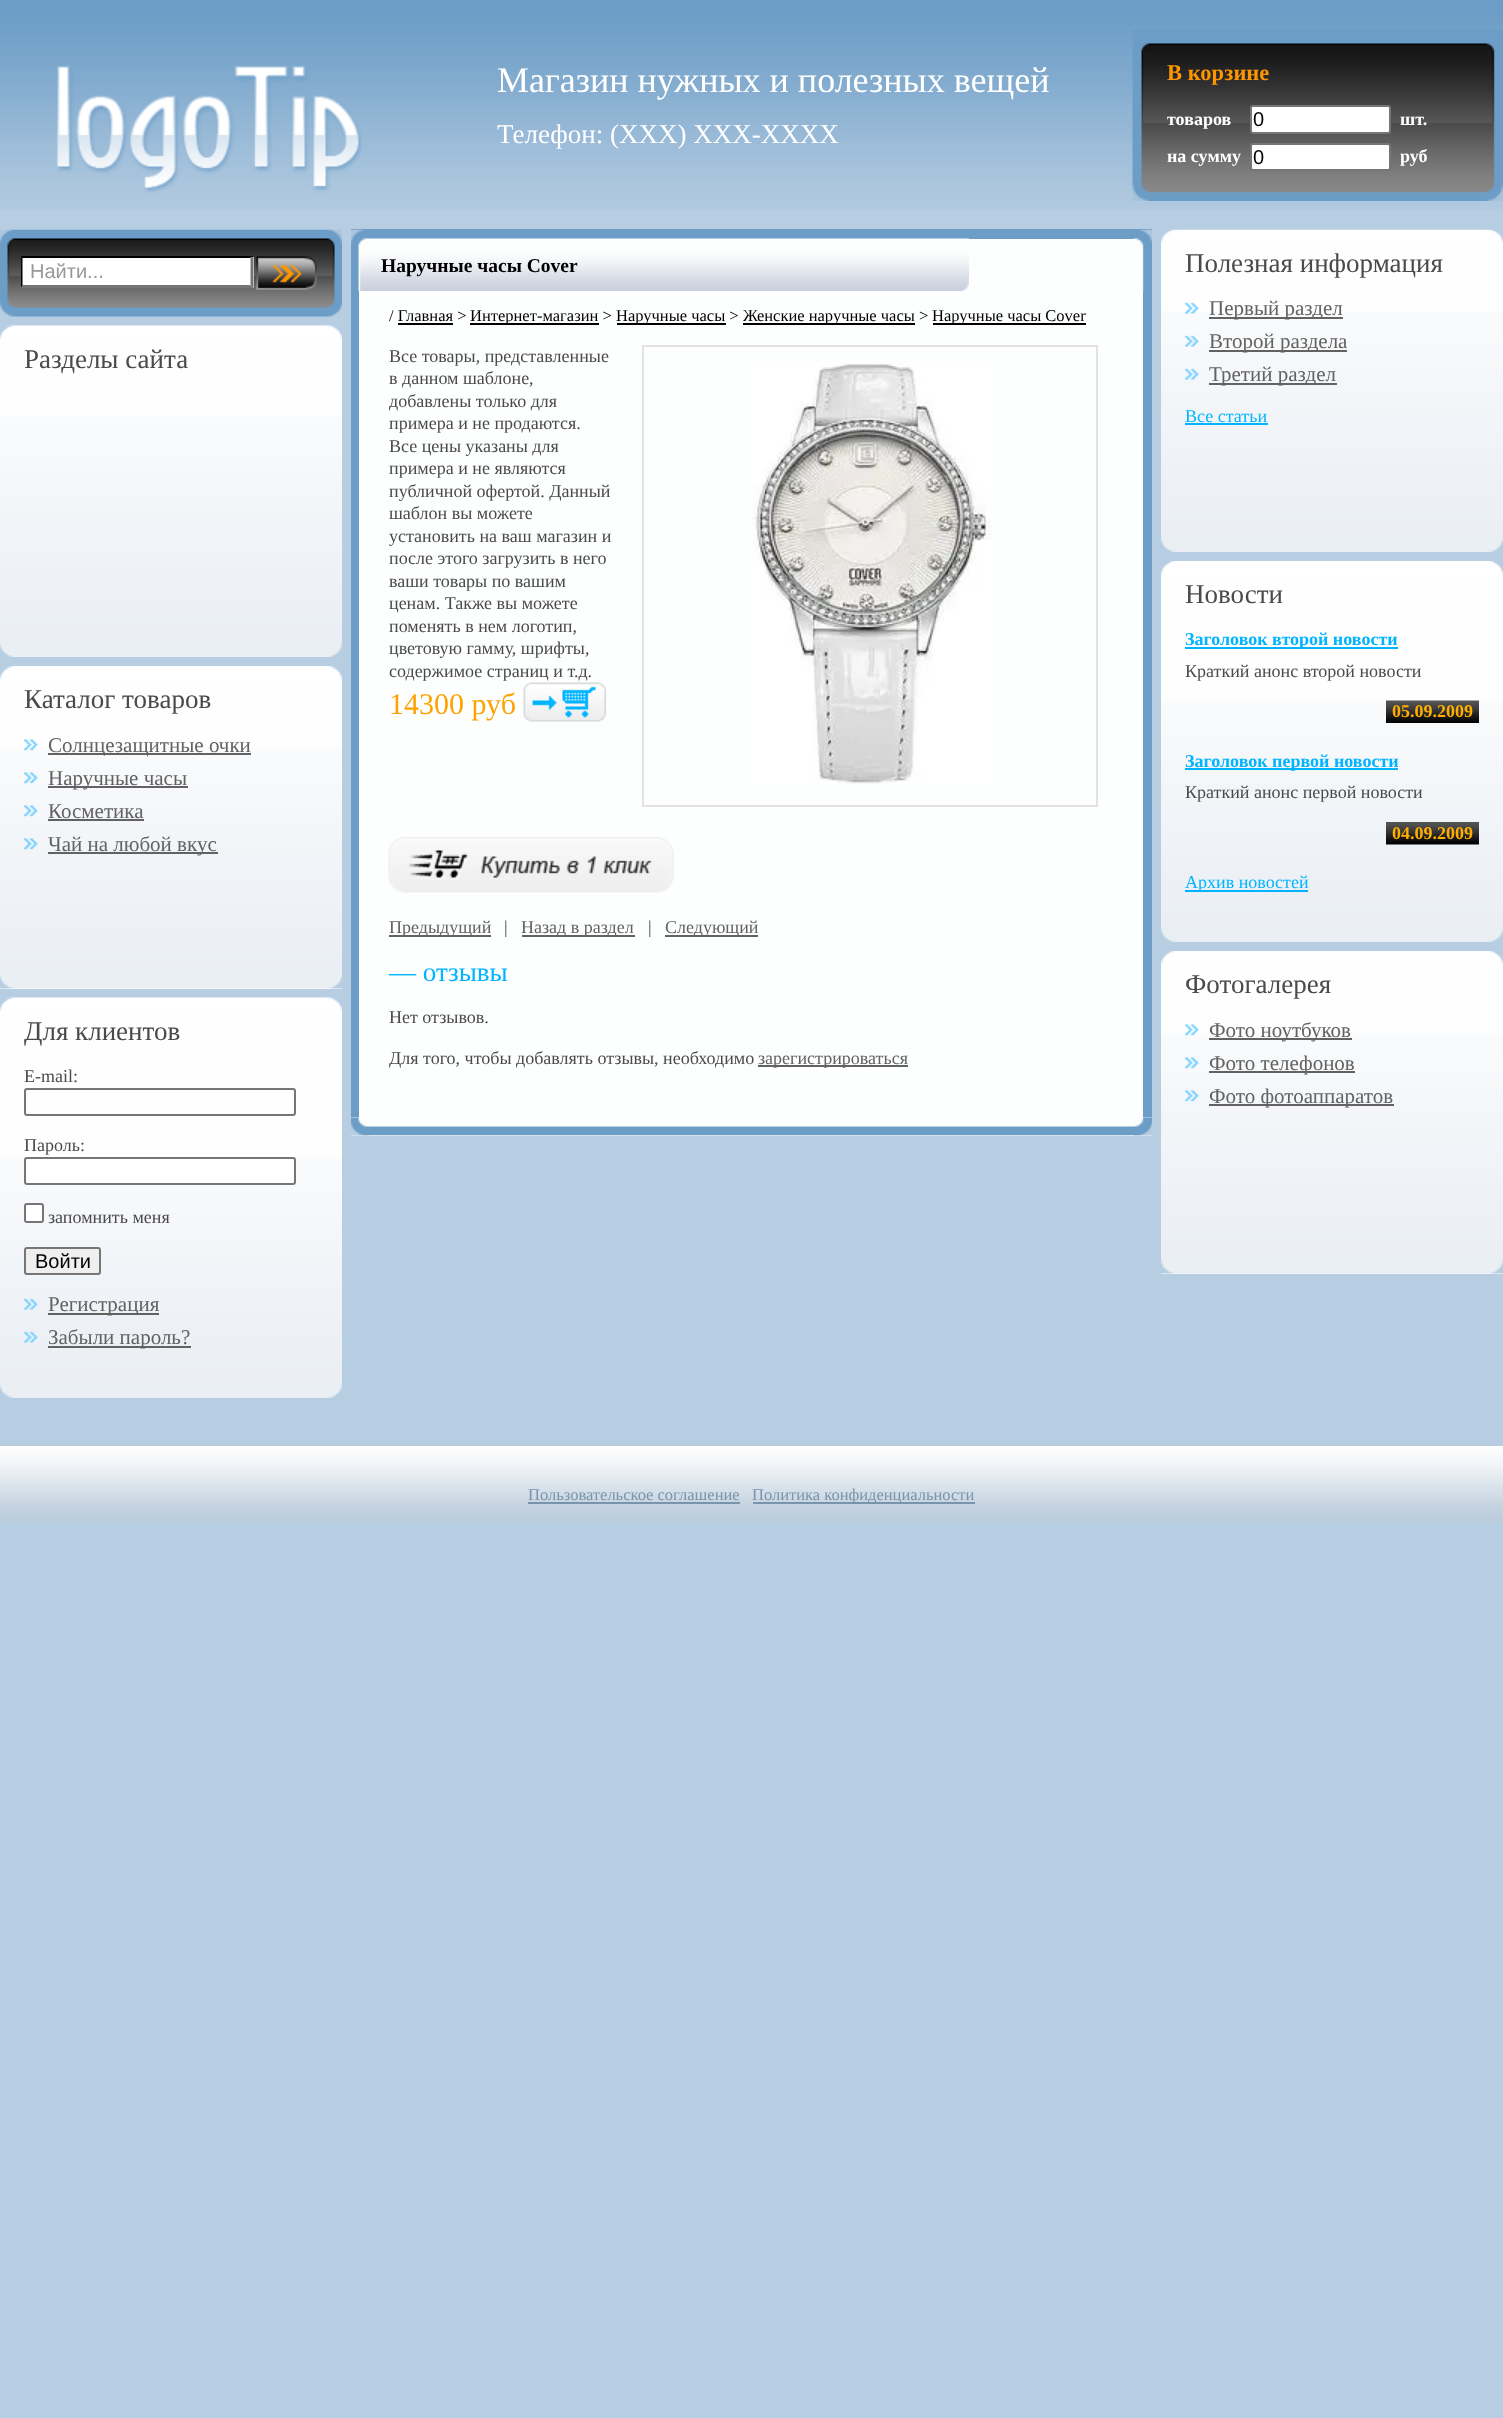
<?xml version="1.0" encoding="UTF-8"?>
<svg xmlns="http://www.w3.org/2000/svg" width="1503" height="2418">
    <rect width="100%" height="100%" fill="#B6CDE2"/>
    <image x="0" y="0" width="1503" height="209" href="img_01.png"/>
    <image x="57" y="65" width="305" height="128" href="img_02.png"/>
    <text x="497" y="92" font-family="Liberation Serif" font-size="36" fill="#FFFFFF">Магазин нужных и полезных вещей</text>
    <text x="497" y="143" font-family="Liberation Serif" font-size="27" fill="#FFFFFF">Телефон: (XXX) XXX-XXXX</text>
    <image x="1132" y="30" width="371" height="171" href="img_03.png"/>
    <text x="1167" y="80" font-family="Liberation Serif" font-size="22.5" font-weight="700" fill="#FF9600">В корзине</text>
    <text x="1167" y="125" font-family="Liberation Serif" font-size="18" font-weight="700" fill="#FFFFFF">товаров</text>
    <rect x="1251" y="106" width="139" height="27" rx="2" fill="#FFFFFF" stroke="#767676" stroke-width="2"/>
    <text x="1253" y="126" font-family="Liberation Sans" font-size="20" fill="#000000">0</text>
    <text x="1400" y="125" font-family="Liberation Serif" font-size="18" font-weight="700" fill="#FFFFFF">шт.</text>
    <text x="1167" y="162" font-family="Liberation Serif" font-size="18" font-weight="700" fill="#FFFFFF">на сумму</text>
    <rect x="1251" y="144" width="139" height="26" rx="2" fill="#FFFFFF" stroke="#767676" stroke-width="2"/>
    <text x="1253" y="164" font-family="Liberation Sans" font-size="20" fill="#000000">0</text>
    <text x="1400" y="162" font-family="Liberation Serif" font-size="18" font-weight="700" fill="#FFFFFF">руб</text>
    <image x="0" y="229" width="342" height="88" href="img_04.png"/>
    <rect x="21" y="257" width="233" height="31" fill="#FFFFFF"/>
    <path d="M 21 256 H 254 L 250 258 H 22 Z" fill="#000000"/>
    <path d="M 253.5 256.5 V 288 L 250.5 285 V 258 Z" fill="#767676"/>
    <path d="M 254 288 H 21 L 22 285 H 250 Z" fill="#767676"/>
    <path d="M 21 288 V 256.5 L 22.5 258 V 285 Z" fill="#000000"/>
    <text x="30" y="278" font-family="Liberation Sans" font-size="20" fill="#989898">Найти...</text>
    <image x="256" y="256" width="61" height="34" href="img_05.png"/>
    <rect x="0" y="340" width="342" height="76" fill="#FEFEFE"/>
    <image x="0" y="325" width="342" height="15" href="img_06.png"/>
    <text x="24" y="368" font-family="Liberation Serif" font-size="27" fill="#4A4A4A">Разделы сайта</text>
    <image x="0" y="416" width="342" height="241" href="img_07.png"/>
    <rect x="0" y="680" width="342" height="309" fill="#FEFEFE"/>
    <image x="0" y="666" width="342" height="14" href="img_08.png"/>
    <text x="24" y="708" font-family="Liberation Serif" font-size="27" fill="#4A4A4A">Каталог товаров</text>
    <image x="0" y="748" width="342" height="241" href="img_09.png"/>
    <image x="24" y="739" width="14" height="12" href="img_10.png"/>
    <rect x="48" y="753" width="203" height="2" fill="#626262"/>
    <text x="48" y="752" font-family="Liberation Serif" font-size="21" fill="#626262">Солнцезащитные очки</text>
    <image x="24" y="772" width="14" height="12" href="img_11.png"/>
    <rect x="48" y="786" width="140" height="2" fill="#626262"/>
    <text x="48" y="785" font-family="Liberation Serif" font-size="21" fill="#626262">Наручные часы</text>
    <image x="24" y="805" width="14" height="12" href="img_12.png"/>
    <text x="48" y="818" font-family="Liberation Serif" font-size="21" fill="#626262">Косметика</text>
    <rect x="48" y="819" width="96" height="2" fill="#626262"/>
    <image x="24" y="838" width="14" height="12" href="img_13.png"/>
    <rect x="48" y="852" width="170" height="2" fill="#626262"/>
    <text x="48" y="851" font-family="Liberation Serif" font-size="21" fill="#626262">Чай на любой вкус</text>
    <rect x="0" y="1012" width="342" height="145" fill="#FEFEFE"/>
    <image x="0" y="997" width="342" height="15" href="img_06.png"/>
    <text x="24" y="1040" font-family="Liberation Serif" font-size="27" fill="#4A4A4A">Для клиентов</text>
    <image x="0" y="1157" width="342" height="241" href="img_07.png"/>
    <text x="24" y="1082" font-family="Liberation Serif" font-size="18" fill="#4A4A4A">E-mail:</text>
    <rect x="25" y="1089" width="270" height="26" rx="2" fill="none" stroke="#767676" stroke-width="2"/>
    <text x="24" y="1151" font-family="Liberation Serif" font-size="18" fill="#4A4A4A">Пароль:</text>
    <rect x="25" y="1158" width="270" height="26" rx="2" fill="#FFFFFF" stroke="#767676" stroke-width="2"/>
    <rect x="25" y="1204" width="18" height="18" rx="2" fill="#FFFFFF" stroke="#767676" stroke-width="2"/>
    <text x="48" y="1223" font-family="Liberation Serif" font-size="18" fill="#4A4A4A">запомнить меня</text>
    <rect x="25" y="1248" width="75" height="26" rx="2" fill="#EFEFEF" stroke="#767676" stroke-width="2"/>
    <text x="35" y="1268" font-family="Liberation Sans" font-size="20" fill="#000000">Войти</text>
    <image x="24" y="1298" width="14" height="12" href="img_14.png"/>
    <rect x="48" y="1313" width="111" height="2" fill="#626262"/>
    <text x="48" y="1311" font-family="Liberation Serif" font-size="21" fill="#626262">Регистрация</text>
    <image x="24" y="1331" width="14" height="12" href="img_15.png"/>
    <rect x="48" y="1346" width="143" height="2" fill="#626262"/>
    <text x="48" y="1344" font-family="Liberation Serif" font-size="21" fill="#626262">Забыли пароль?</text>
    <rect x="351" y="239" width="801" height="897" fill="#FDFEFE"/>
    <rect x="351" y="229" width="801" height="10" fill="#6C9DC6"/>
    <image x="351" y="229" width="15" height="62" href="img_16.png"/>
    <image x="366" y="238" width="585" height="53" href="img_17.png"/>
    <text x="381" y="272" font-family="Liberation Serif" font-size="19.5" font-weight="700" fill="#000000">Наручные часы Cover</text>
    <image x="951" y="238" width="18" height="53" href="img_18.png"/>
    <image x="1134" y="229" width="18" height="62" href="img_19.png"/>
    <rect x="1143" y="291" width="9" height="827" fill="#6C9DC6"/>
    <rect x="351" y="291" width="8" height="827" fill="#6C9DC6"/>
    <text x="389" y="321" font-family="Liberation Serif" font-size="16.5" fill="#000000">/ Главная &gt;</text>
    <rect x="470" y="323" width="129" height="2" fill="#000000"/>
    <text x="470" y="321" font-family="Liberation Serif" font-size="16.5" fill="#000000">Интернет-магазин &gt;</text>
    <rect x="617" y="323" width="109" height="2" fill="#000000"/>
    <text x="616" y="321" font-family="Liberation Serif" font-size="16.5" fill="#000000">Наручные часы &gt;</text>
    <rect x="743" y="323" width="172" height="2" fill="#000000"/>
    <text x="743" y="321" font-family="Liberation Serif" font-size="16.5" fill="#000000">Женские наручные часы &gt;</text>
    <rect x="933" y="323" width="153" height="2" fill="#000000"/>
    <text x="932" y="321" font-family="Liberation Serif" font-size="16.5" fill="#000000">Наручные часы Cover</text>
    <rect x="398" y="323" width="55" height="2" fill="#000000"/>
    <text font-family="Liberation Serif" font-size="18" fill="#4A4A4A">
        <tspan x="389" y="362">Все товары, представленные</tspan>
        <tspan x="389" y="384">в данном шаблоне,</tspan>
        <tspan x="389" y="407">добавлены только для</tspan>
        <tspan x="389" y="429">примера и не продаются.</tspan>
        <tspan x="389" y="452">Все цены указаны для</tspan>
        <tspan x="389" y="474">примера и не являются</tspan>
        <tspan x="389" y="497">публичной офертой. Данный</tspan>
        <tspan x="389" y="519">шаблон вы можете</tspan>
        <tspan x="389" y="542">установить на ваш магазин и</tspan>
        <tspan x="389" y="564">после этого загрузить в него</tspan>
        <tspan x="389" y="587">ваши товары по вашим</tspan>
        <tspan x="389" y="609">ценам. Также вы можете</tspan>
        <tspan x="389" y="632">поменять в нем логотип,</tspan>
        <tspan x="389" y="654">цветовую гамму, шрифты,</tspan>
        <tspan x="389" y="677">содержимое страниц и т.д.</tspan>
    </text>
    <rect x="643" y="346" width="454" height="460" fill="none" stroke="#E2E2E2" stroke-width="2"/>
    <image x="753" y="363" width="240" height="421" href="img_20.png"/>
    <text x="389" y="714" font-family="Liberation Serif" font-size="30" fill="#FFA200">14300 руб</text>
    <image x="523" y="682" width="83" height="40" href="img_21.png"/>
    <image x="388" y="837" width="286" height="56" href="img_22.png"/>
    <rect x="389" y="935" width="102" height="2" fill="#626262"/>
    <text x="389" y="933" font-family="Liberation Serif" font-size="18" fill="#626262">Предыдущий</text>
    <text x="504" y="933" font-family="Liberation Serif" font-size="18" fill="#4A4A4A">|</text>
    <rect x="522" y="935" width="113" height="2" fill="#626262"/>
    <text x="521" y="933" font-family="Liberation Serif" font-size="18" fill="#626262">Назад в раздел</text>
    <text x="648" y="933" font-family="Liberation Serif" font-size="18" fill="#4A4A4A">|</text>
    <rect x="665" y="935" width="93" height="2" fill="#626262"/>
    <text x="665" y="933" font-family="Liberation Serif" font-size="18" fill="#626262">Следующий</text>
    <text x="389" y="981" font-family="Liberation Serif" font-size="27" fill="#00B4FF">— отзывы</text>
    <text x="389" y="1023" font-family="Liberation Serif" font-size="18" fill="#4A4A4A">Нет отзывов.</text>
    <text x="389" y="1064" font-family="Liberation Serif" font-size="18" fill="#4A4A4A">Для того, чтобы добавлять отзывы, необходимо</text>
    <rect x="758" y="1065" width="150" height="2" fill="#626262"/>
    <text x="758" y="1064" font-family="Liberation Serif" font-size="18" fill="#626262">зарегистрироваться</text>
    <image x="351" y="1117" width="801" height="19" href="img_23.png"/>
    <image x="351" y="1117" width="18" height="19" href="img_24.png"/>
    <image x="1134" y="1117" width="18" height="19" href="img_25.png"/>
    <rect x="1161" y="244" width="342" height="67" fill="#FEFEFE"/>
    <image x="1161" y="229" width="342" height="15" href="img_26.png"/>
    <text x="1185" y="272" font-family="Liberation Serif" font-size="27" fill="#4A4A4A">Полезная информация</text>
    <image x="1161" y="311" width="342" height="241" href="img_27.png"/>
    <image x="1185" y="302" width="14" height="12" href="img_28.png"/>
    <rect x="1209" y="317" width="134" height="2" fill="#626262"/>
    <text x="1209" y="315" font-family="Liberation Serif" font-size="21" fill="#626262">Первый раздел</text>
    <image x="1185" y="335" width="14" height="12" href="img_29.png"/>
    <rect x="1209" y="350" width="138" height="2" fill="#626262"/>
    <text x="1209" y="348" font-family="Liberation Serif" font-size="21" fill="#626262">Второй раздела</text>
    <image x="1185" y="368" width="14" height="12" href="img_30.png"/>
    <rect x="1209" y="383" width="128" height="2" fill="#626262"/>
    <text x="1209" y="381" font-family="Liberation Serif" font-size="21" fill="#626262">Третий раздел</text>
    <text x="1185" y="422" font-family="Liberation Serif" font-size="18" fill="#00B4FF">Все статьи</text>
    <rect x="1185" y="423" width="83" height="2" fill="#00B4FF"/>
    <rect x="1161" y="575" width="342" height="126" fill="#FEFEFE"/>
    <image x="1161" y="561" width="342" height="14" href="img_31.png"/>
    <text x="1185" y="603" font-family="Liberation Serif" font-size="27" fill="#4A4A4A">Новости</text>
    <image x="1161" y="701" width="342" height="241" href="img_27.png"/>
    <rect x="1185" y="647" width="213" height="2" fill="#00B4FF"/>
    <text x="1185" y="645" font-family="Liberation Serif" font-size="18" font-weight="700" fill="#00B4FF">Заголовок второй новости</text>
    <text x="1185" y="677" font-family="Liberation Serif" font-size="18" fill="#4A4A4A">Краткий анонс второй новости</text>
    <image x="1386" y="700" width="93" height="23" href="img_32.png"/>
    <text x="1392" y="717" font-family="Liberation Serif" font-size="18" font-weight="700" fill="#FFAE00">05.09.2009</text>
    <rect x="1185" y="768" width="213" height="2" fill="#00B4FF"/>
    <text x="1185" y="767" font-family="Liberation Serif" font-size="18" font-weight="700" fill="#00B4FF">Заголовок первой новости</text>
    <text x="1185" y="798" font-family="Liberation Serif" font-size="18" fill="#4A4A4A">Краткий анонс первой новости</text>
    <image x="1386" y="822" width="93" height="23" href="img_33.png"/>
    <text x="1392" y="839" font-family="Liberation Serif" font-size="18" font-weight="700" fill="#FFAE00">04.09.2009</text>
    <rect x="1185" y="890" width="123" height="2" fill="#00B4FF"/>
    <text x="1185" y="888" font-family="Liberation Serif" font-size="18" fill="#00B4FF">Архив новостей</text>
    <rect x="1161" y="965" width="342" height="309" fill="#FEFEFE"/>
    <image x="1161" y="951" width="342" height="14" href="img_31.png"/>
    <text x="1185" y="993" font-family="Liberation Serif" font-size="27" fill="#4A4A4A">Фотогалерея</text>
    <image x="1161" y="1033" width="342" height="241" href="img_34.png"/>
    <image x="1185" y="1024" width="14" height="12" href="img_35.png"/>
    <rect x="1209" y="1038" width="143" height="2" fill="#626262"/>
    <text x="1209" y="1037" font-family="Liberation Serif" font-size="21" fill="#626262">Фото ноутбуков</text>
    <image x="1185" y="1057" width="14" height="12" href="img_36.png"/>
    <rect x="1209" y="1071" width="146" height="2" fill="#626262"/>
    <text x="1209" y="1070" font-family="Liberation Serif" font-size="21" fill="#626262">Фото телефонов</text>
    <image x="1185" y="1090" width="14" height="12" href="img_37.png"/>
    <rect x="1209" y="1104" width="185" height="2" fill="#626262"/>
    <text x="1209" y="1103" font-family="Liberation Serif" font-size="21" fill="#626262">Фото фотоаппаратов</text>
    <image x="0" y="1446" width="1503" height="76" href="img_38.png"/>
    <text x="528" y="1500" font-family="Liberation Serif" font-size="16.5" fill="#7994AB">Пользовательское соглашение</text>
    <rect x="528" y="1502" width="212" height="2" fill="#7994AB"/>
    <rect x="753" y="1502" width="222" height="2" fill="#7994AB"/>
    <text x="752" y="1500" font-family="Liberation Serif" font-size="16.5" fill="#7994AB">Политика конфиденциальности</text>
</svg>
